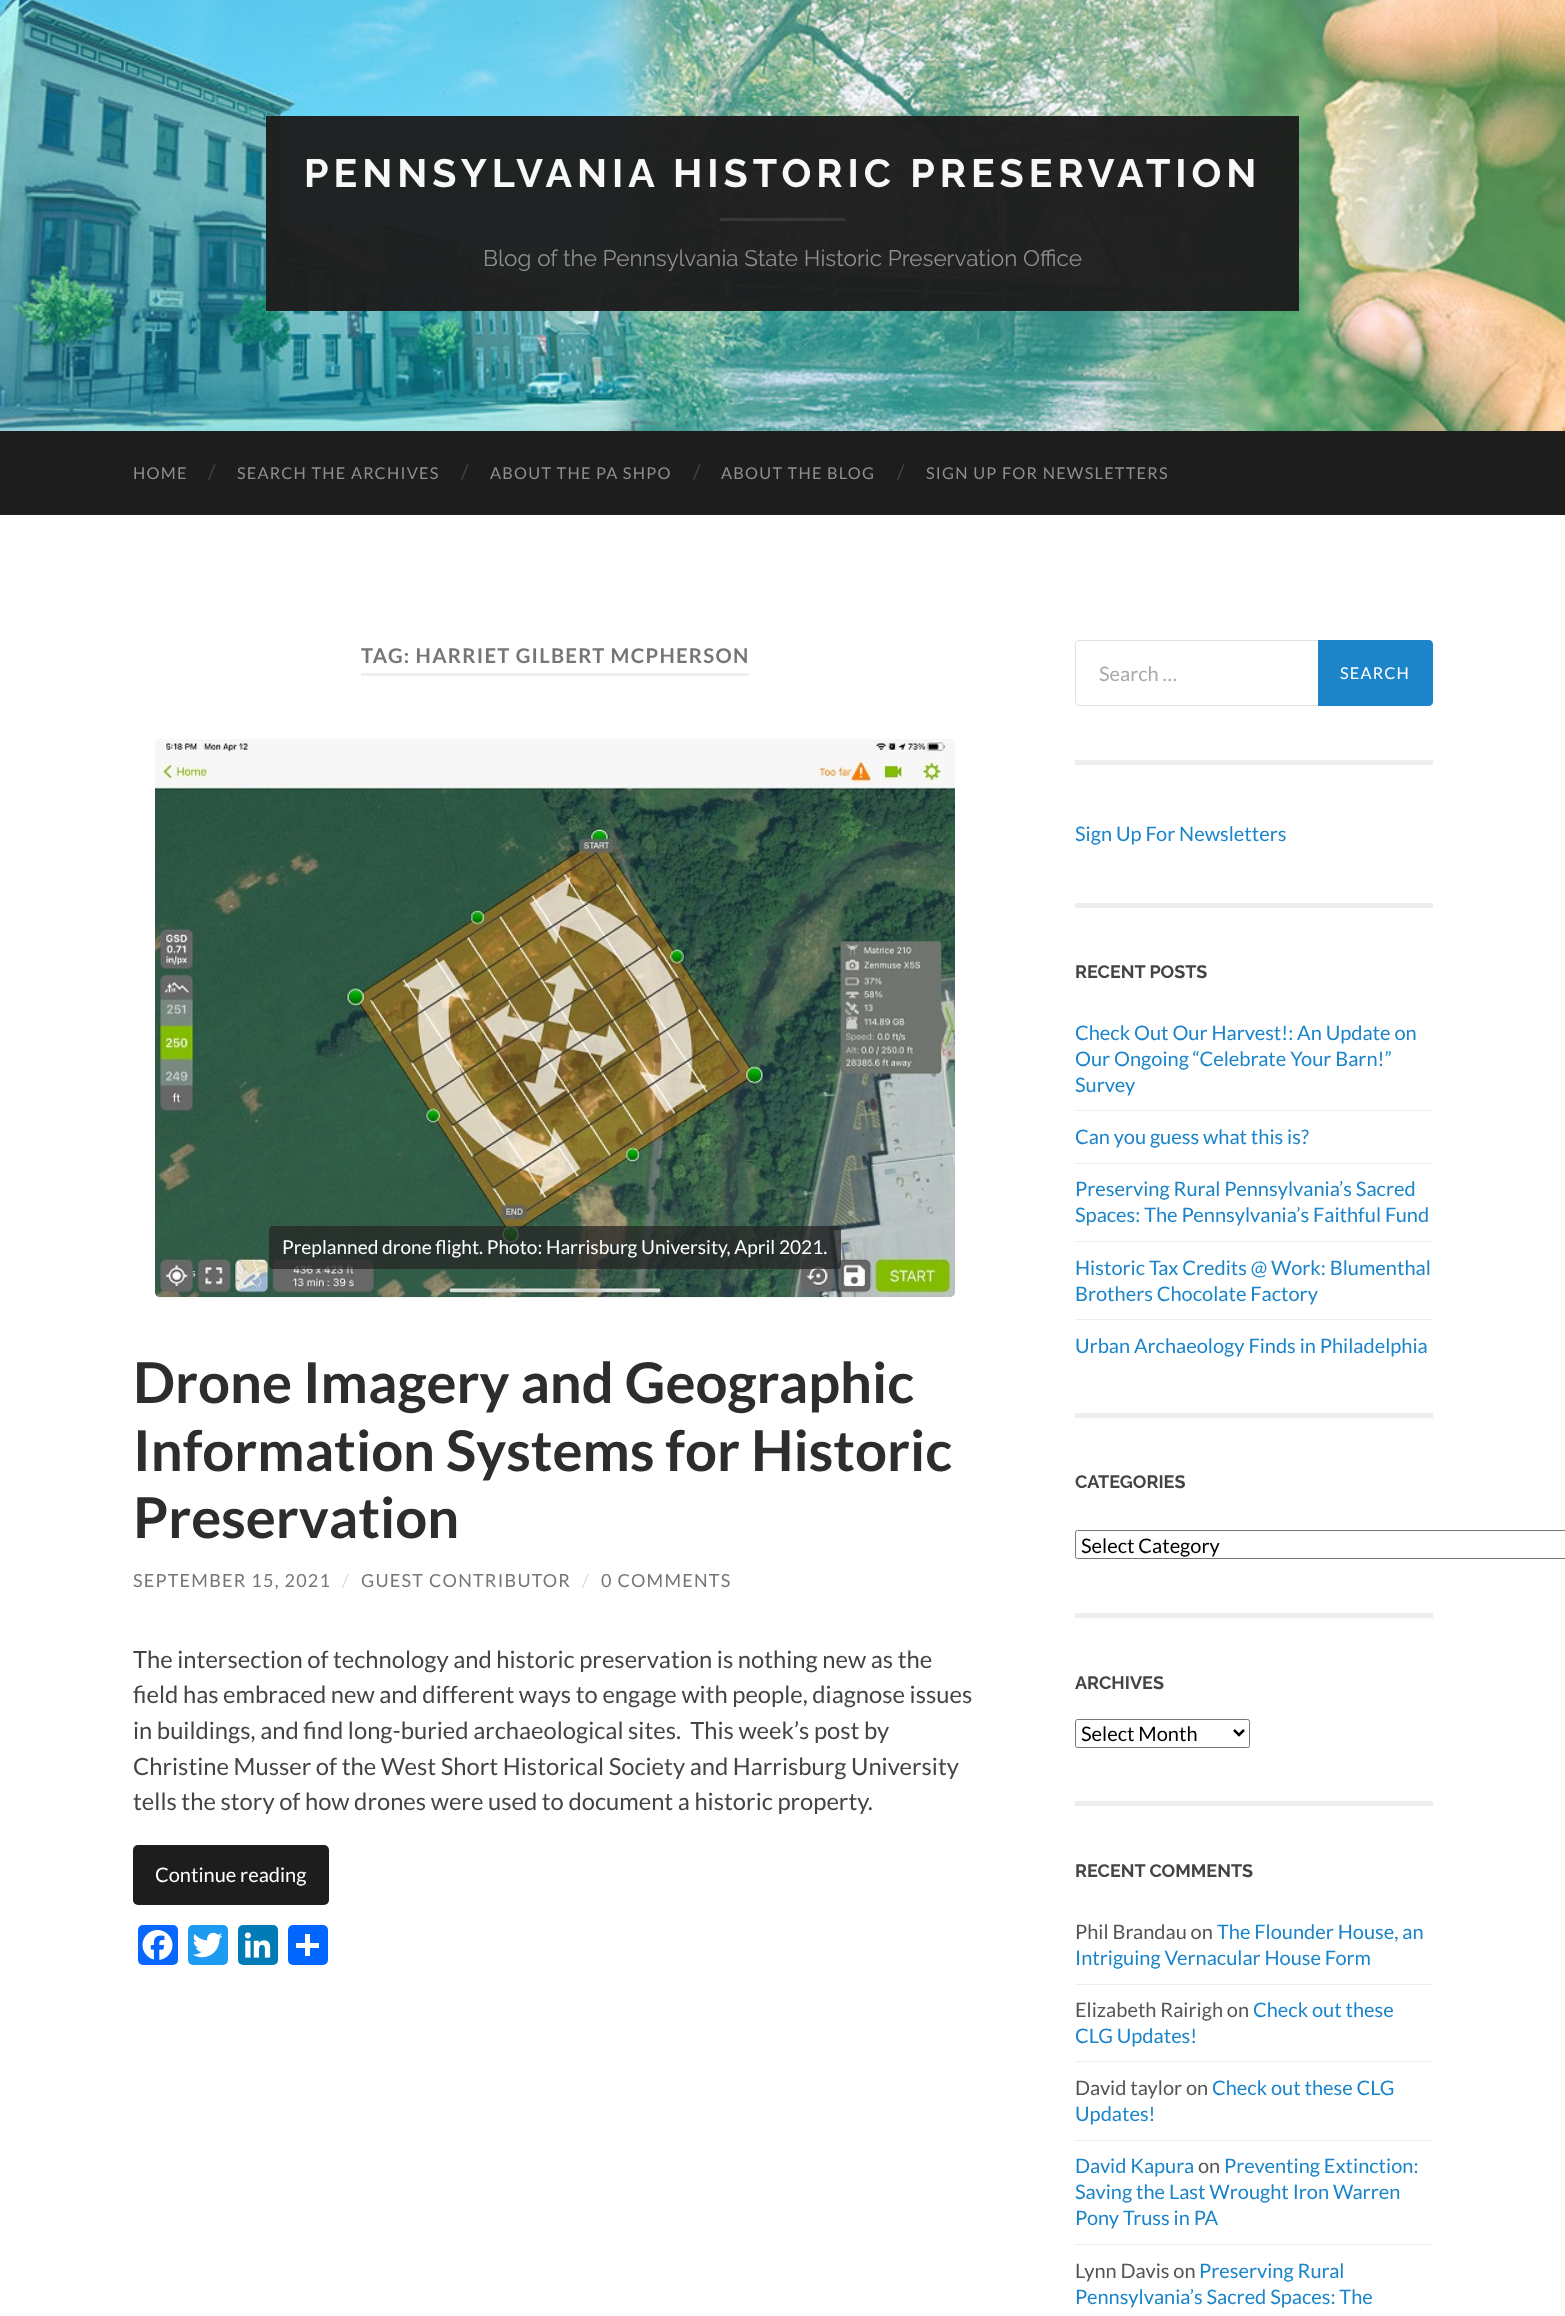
<?xml version="1.0" encoding="UTF-8"?>
<svg xmlns="http://www.w3.org/2000/svg" width="1565" height="2316">
    <rect width="100%" height="100%" fill="#FFFFFF"/>
    <image x="0" y="0" width="1565" height="431" href="img_01.png"/>
    <rect x="266" y="116" width="1033" height="195" fill="#1D1D1D" fill-opacity="0.97"/>
    <text x="304" y="187" font-family="Raleway" font-size="39.4" font-weight="100" letter-spacing="5" fill="#F8F8F8">PENNSYLVANIA HISTORIC PRESERVATION</text>
    <rect x="720" y="218" width="125" height="3" fill="#FFFFFF" fill-opacity="0.1"/>
    <text x="483" y="266" font-family="'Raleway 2'" font-size="22.5" font-weight="100" fill="#8E8E8E">Blog of the Pennsylvania State Historic Preservation Office</text>
    <rect x="0" y="431" width="1565" height="84" fill="#1D1D1D"/>
    <text x="133" y="479" font-family="Lato" font-size="16.25" letter-spacing="1.25" fill="#8E8E8E">HOME</text>
    <text x="208" y="479" font-family="Lato" font-size="20" fill="#444444">/</text>
    <text x="237" y="479" font-family="Lato" font-size="16.25" letter-spacing="1.25" fill="#8E8E8E">SEARCH THE ARCHIVES</text>
    <text x="461" y="479" font-family="Lato" font-size="20" fill="#444444">/</text>
    <text x="490" y="479" font-family="Lato" font-size="16.25" letter-spacing="1.25" fill="#8E8E8E">ABOUT THE PA SHPO</text>
    <text x="693" y="479" font-family="Lato" font-size="20" fill="#444444">/</text>
    <text x="721" y="479" font-family="Lato" font-size="16.25" letter-spacing="1.25" fill="#8E8E8E">ABOUT THE BLOG</text>
    <text x="897" y="479" font-family="Lato" font-size="20" fill="#444444">/</text>
    <text x="926" y="479" font-family="Lato" font-size="16.25" letter-spacing="1.25" fill="#8E8E8E">SIGN UP FOR NEWSLETTERS</text>
    <rect x="361" y="673" width="388" height="3" fill="#EEEEEE"/>
    <text x="361" y="663" font-family="Lato" font-size="20.25" font-weight="700" letter-spacing="1.25" fill="#767676">TAG: HARRIET GILBERT MCPHERSON</text>
    <image x="155" y="739" width="800" height="559" href="img_02.png"/>
    <rect x="269" y="1226" width="572" height="43" rx="4" fill="#262626" fill-opacity="0.75"/>
    <text x="282" y="1254" font-family="Lato" font-size="19.1" fill="#FFFFFF">Preplanned drone flight. Photo: Harrisburg University, April 2021.</text>
    <text font-family="Lato" font-size="56.25" font-weight="700" fill="#2D2D2D">
        <tspan x="133" y="1403">Drone Imagery and Geographic</tspan>
        <tspan x="133" y="1471">Information Systems for Historic</tspan>
        <tspan x="133" y="1538">Preservation</tspan>
    </text>
    <text x="133" y="1587" font-family="Lato" font-size="18" letter-spacing="1.25" fill="#767676">SEPTEMBER 15, 2021</text>
    <text x="342" y="1587" font-family="Lato" font-size="18" letter-spacing="1.25" fill="#DDDDDD">/</text>
    <text x="361" y="1587" font-family="Lato" font-size="18" letter-spacing="1.25" fill="#767676">GUEST CONTRIBUTOR</text>
    <text x="582" y="1587" font-family="Lato" font-size="18" letter-spacing="1.25" fill="#DDDDDD">/</text>
    <text x="601" y="1587" font-family="Lato" font-size="18" letter-spacing="1.25" fill="#767676">0 COMMENTS</text>
    <text font-family="Lato" font-size="23.75" fill="#444444" xml:space="preserve"><tspan x="133" y="1668">The intersection of technology and historic preservation is nothing new as the</tspan><tspan x="133" y="1703">field has embraced new and different ways to engage with people, diagnose issues</tspan><tspan x="133" y="1739">in buildings, and find long-buried archaeological sites.  This week’s post by</tspan><tspan x="133" y="1775">Christine Musser of the West Short Historical Society and Harrisburg University</tspan><tspan x="133" y="1810">tells the story of how drones were used to document a historic property.</tspan></text>
    <rect x="133" y="1845" width="196" height="60" rx="5" fill="#1D1D1D"/>
    <text x="155" y="1882" font-family="Lato" font-size="20" fill="#FFFFFF">Continue reading</text>
    <rect x="138" y="1925" width="40" height="40" rx="5" fill="#0866FF"/>
    <image x="142" y="1930" width="31" height="30" href="img_03.png"/>
    <rect x="188" y="1925" width="40" height="40" rx="5" fill="#1D9BF0"/>
    <image x="192" y="1932" width="31" height="26" href="img_04.png"/>
    <rect x="238" y="1925" width="40" height="40" rx="5" fill="#007BB5"/>
    <image x="244" y="1932" width="27" height="26" href="img_05.png"/>
    <rect x="288" y="1925" width="40" height="40" rx="5" fill="#0166FF"/>
    <rect x="305" y="1934" width="5" height="22" fill="#FFFFFF"/>
    <rect x="296" y="1943" width="23" height="5" fill="#FFFFFF"/>
    <rect x="1075" y="760" width="358" height="5" fill="#EEEEEE"/>
    <path d="M 1079 640 H 1318 V 706 H 1079 C 1077 706 1075 705 1075 702 V 644 C 1075 642 1077 640 1079 640 Z M 1079 641 H 1318 V 705 H 1079 C 1077 705 1076 704 1076 702 V 644 C 1076 642 1077 641 1079 641 Z" fill="#E1E1E3" fill-rule="evenodd"/>
    <text x="1099" y="681" font-family="Lato" font-size="20" fill="#A9A9A9">Search …</text>
    <path d="M 1318 640 H 1429 C 1431 640 1433 642 1433 644 V 702 C 1433 704 1431 706 1429 706 H 1318 Z" fill="#1C84C9"/>
    <text x="1340" y="679" font-family="Lato" font-size="16.25" letter-spacing="1.25" fill="#FFFFFF">SEARCH</text>
    <rect x="1075" y="903" width="358" height="5" fill="#EEEEEE"/>
    <text x="1075" y="841" font-family="Lato" font-size="20" fill="#1C84C9">Sign Up For Newsletters</text>
    <rect x="1075" y="1413" width="358" height="5" fill="#EEEEEE"/>
    <text x="1075" y="978" font-family="Raleway" font-size="18" font-weight="100" fill="#444444">RECENT POSTS</text>
    <text font-family="Lato" font-size="20" fill="#1C84C9">
        <tspan x="1075" y="1040">Check Out Our Harvest!: An Update on</tspan>
        <tspan x="1075" y="1066">Our Ongoing “Celebrate Your Barn!”</tspan>
        <tspan x="1075" y="1092">Survey</tspan>
    </text>
    <rect x="1075" y="1110" width="358" height="1" fill="#EEEEEE"/>
    <text x="1075" y="1144" font-family="Lato" font-size="20" fill="#1C84C9">Can you guess what this is?</text>
    <rect x="1075" y="1163" width="358" height="1" fill="#EEEEEE"/>
    <text font-family="Lato" font-size="20" fill="#1C84C9">
        <tspan x="1075" y="1196">Preserving Rural Pennsylvania’s Sacred</tspan>
        <tspan x="1075" y="1222">Spaces: The Pennsylvania’s Faithful Fund</tspan>
    </text>
    <rect x="1075" y="1241" width="358" height="1" fill="#EEEEEE"/>
    <text font-family="Lato" font-size="20" fill="#1C84C9">
        <tspan x="1075" y="1275">Historic Tax Credits @ Work: Blumenthal</tspan>
        <tspan x="1075" y="1301">Brothers Chocolate Factory</tspan>
    </text>
    <rect x="1075" y="1319" width="358" height="1" fill="#EEEEEE"/>
    <text x="1075" y="1353" font-family="Lato" font-size="20" fill="#1C84C9">Urban Archaeology Finds in Philadelphia</text>
    <rect x="1075" y="1613" width="358" height="5" fill="#EEEEEE"/>
    <text x="1075" y="1488" font-family="Raleway" font-size="18" font-weight="100" fill="#444444">CATEGORIES</text>
    <rect x="1075.5" y="1530.5" width="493" height="28" rx="2" fill="none" stroke="#767676"/>
    <text x="1081" y="1553" font-family="Lato" font-size="20" fill="#000000">Select Category</text>
    <rect x="1075" y="1801" width="358" height="5" fill="#EEEEEE"/>
    <text x="1075" y="1689" font-family="Raleway" font-size="18" font-weight="100" fill="#444444">ARCHIVES</text>
    <rect x="1075.5" y="1719.5" width="174" height="28" rx="2" fill="none" stroke="#767676"/>
    <path d="M 1234 1730 L 1239 1735 L 1244 1730" fill="none" stroke="#000000" stroke-width="2.5"/>
    <text x="1081" y="1741" font-family="Lato" font-size="20" fill="#000000">Select Month</text>
    <text x="1075" y="1877" font-family="Raleway" font-size="18" font-weight="100" fill="#444444">RECENT COMMENTS</text>
    <text x="1075" y="1939" font-family="Lato" font-size="20" fill="#555555">Phil Brandau on</text>
    <text x="1217" y="1939" font-family="Lato" font-size="20" fill="#1C84C9">The Flounder House, an</text>
    <text x="1075" y="1965" font-family="Lato" font-size="20" fill="#1C84C9">Intriguing Vernacular House Form</text>
    <rect x="1075" y="1984" width="358" height="1" fill="#EEEEEE"/>
    <text x="1075" y="2017" font-family="Lato" font-size="20" fill="#555555">Elizabeth Rairigh on</text>
    <text x="1253" y="2017" font-family="Lato" font-size="20" fill="#1C84C9">Check out these</text>
    <text x="1075" y="2043" font-family="Lato" font-size="20" fill="#1C84C9">CLG Updates!</text>
    <rect x="1075" y="2061" width="358" height="1" fill="#EEEEEE"/>
    <text x="1075" y="2095" font-family="Lato" font-size="20" fill="#555555">David taylor on</text>
    <text x="1212" y="2095" font-family="Lato" font-size="20" fill="#1C84C9">Check out these CLG</text>
    <text x="1075" y="2121" font-family="Lato" font-size="20" fill="#1C84C9">Updates!</text>
    <rect x="1075" y="2140" width="358" height="1" fill="#EEEEEE"/>
    <text x="1075" y="2173" font-family="Lato" font-size="20" fill="#1C84C9">David Kapura</text>
    <text x="1198" y="2173" font-family="Lato" font-size="20" fill="#555555">on</text>
    <text x="1224" y="2173" font-family="Lato" font-size="20" fill="#1C84C9">Preventing Extinction:</text>
    <text font-family="Lato" font-size="20" fill="#1C84C9">
        <tspan x="1075" y="2199">Saving the Last Wrought Iron Warren</tspan>
        <tspan x="1075" y="2225">Pony Truss in PA</tspan>
    </text>
    <rect x="1075" y="2244" width="358" height="1" fill="#EEEEEE"/>
    <text x="1075" y="2278" font-family="Lato" font-size="20" fill="#555555">Lynn Davis on</text>
    <text x="1199" y="2278" font-family="Lato" font-size="20" fill="#1C84C9">Preserving Rural</text>
    <text x="1075" y="2304" font-family="Lato" font-size="20" fill="#1C84C9">Pennsylvania’s Sacred Spaces: The</text>
</svg>
